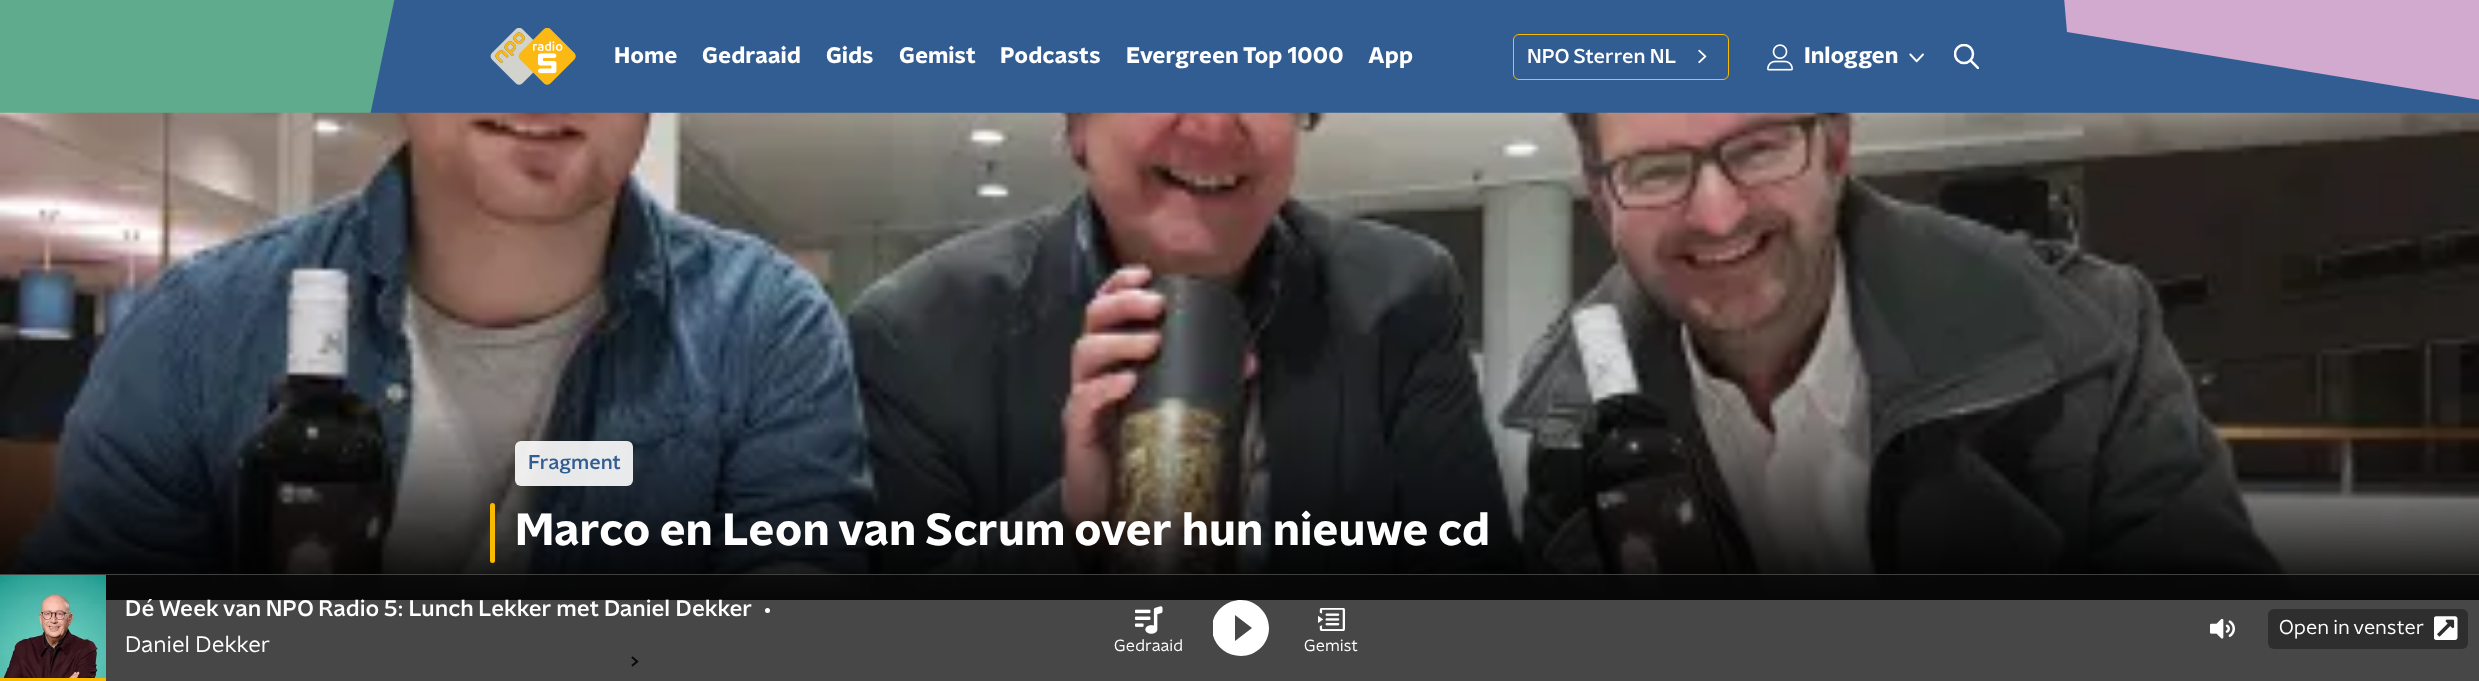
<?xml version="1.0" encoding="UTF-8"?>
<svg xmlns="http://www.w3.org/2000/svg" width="2479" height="681">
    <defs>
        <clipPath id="clip1"><rect x="0" y="0" width="421" height="113"/></clipPath>
        <clipPath id="clip2"><rect x="1954" y="44" width="25" height="25"/></clipPath>
        <clipPath id="clip3"><rect x="1213" y="600" width="56" height="56"/></clipPath>
    </defs>
    <rect width="100%" height="100%" fill="#FFFFFF"/>
    <rect x="370" y="0" width="2109" height="113" fill="#325D92"/>
    <g clip-path="url(#clip1)">
        <path d="M 422 -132 L 66 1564 L -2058 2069 L -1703 373 Z" fill="#5EAB8D"/>
    </g>
    <path d="M 2067 32 L 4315 402 L 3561 -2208 L 1835 -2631 Z" fill="#D2AAD0"/>
    <image x="490" y="28" width="86" height="57" href="img_01.png"/>
    <text x="614" y="63" font-family="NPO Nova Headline" font-size="22.5" font-weight="700" fill="#FFFFFF">Home</text>
    <text x="702" y="63" font-family="NPO Nova Headline" font-size="22.5" font-weight="700" fill="#FFFFFF">Gedraaid</text>
    <text x="826" y="63" font-family="NPO Nova Headline" font-size="22.5" font-weight="700" fill="#FFFFFF">Gids</text>
    <text x="899" y="63" font-family="NPO Nova Headline" font-size="22.5" font-weight="700" fill="#FFFFFF">Gemist</text>
    <text x="1000" y="63" font-family="NPO Nova Headline" font-size="22.5" font-weight="700" fill="#FFFFFF">Podcasts</text>
    <text x="1126" y="63" font-family="NPO Nova Headline" font-size="22.5" font-weight="700" fill="#FFFFFF">Evergreen Top 1000</text>
    <text x="1368" y="63" font-family="NPO Nova Headline" font-size="22.5" font-weight="700" fill="#FFFFFF">App</text>
    <rect x="1513.5" y="34.5" width="215" height="45" rx="5.5" fill="none" stroke="#FABA00"/>
    <text x="1527" y="63" font-family="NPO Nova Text" font-size="20" font-weight="500" fill="#FFFFFF">NPO Sterren NL</text>
    <image x="1698" y="49" width="9" height="15" href="img_02.png"/>
    <image x="1767" y="44" width="26" height="27" href="img_03.png"/>
    <text x="1804" y="63" font-family="NPO Nova Headline" font-size="22.5" font-weight="700" fill="#FFFFFF">Inloggen</text>
    <image x="1909" y="53" width="15" height="10" href="img_04.png"/>
    <g clip-path="url(#clip2)">
        <circle cx="1964" cy="54" r="9" fill="none" stroke="#FFFFFF" stroke-width="2.5"/>
        <path d="M 1970.5 60.5 L 1978 68" fill="none" stroke="#FFFFFF" stroke-width="2.5" stroke-linecap="square"/>
    </g>
    <image x="0" y="112" width="2479" height="488" href="img_05.png"/>
    <rect x="515" y="441" width="118" height="45" rx="6" fill="#FFFFFF" fill-opacity="0.9"/>
    <text x="528" y="469" font-family="NPO Nova Text" font-size="20" font-weight="500" fill="#325D92">Fragment</text>
    <rect x="490" y="503" width="5" height="60" rx="2.5" fill="#FABA00"/>
    <text x="515" y="545" font-family="NPO Nova Headline" font-size="45" font-weight="700" fill="#FFFFFF">Marco en Leon van Scrum over hun nieuwe cd</text>
    <image x="631" y="656" width="8" height="11" href="img_06.png"/>
    <rect x="0" y="574" width="2479" height="107" fill="#090909" fill-opacity="0.75"/>
    <rect x="0" y="574" width="2479" height="1" fill="#5F5F5F" fill-opacity="0.65"/>
    <image x="0" y="575" width="106" height="103" href="img_07.png"/>
    <rect x="0" y="678" width="106" height="3" fill="#FABA00"/>
    <text x="125" y="616" font-family="NPO Nova Text" font-size="22.5" font-weight="500" fill="#FFFFFF">Dé Week van NPO Radio 5: Lunch Lekker met Daniel Dekker</text>
    <circle cx="767.5" cy="610.5" r="2.5" fill="#FFFFFF"/>
    <text x="125" y="652" font-family="NPO Nova Text" font-size="22.5" fill="#FFFFFF">Daniel Dekker</text>
    <image x="2210" y="619" width="25" height="20" href="img_08.png"/>
    <rect x="2268" y="609" width="200" height="40" rx="6" fill="#2E2E2E"/>
    <text x="2279" y="634" font-family="NPO Nova Text" font-size="20" fill="#FFFFFF">Open in venster</text>
    <image x="2434" y="616" width="24" height="24" href="img_09.png"/>
    <image x="1135" y="606" width="28" height="28" href="img_10.png"/>
    <text x="1114" y="651" font-family="NPO Nova Text" font-size="16.25" fill="#FFFFFF">Gedraaid</text>
    <g clip-path="url(#clip3)">
        <path d="M 1241 600 C 1225 600 1212 613 1212 628 C 1212 644 1225 656 1241 656 C 1256 656 1269 644 1269 628 C 1269 613 1256 600 1241 600 Z M 1235 641 V 615 L 1252 628 Z" fill="#FFFFFF"/>
    </g>
    <image x="1318" y="608" width="27" height="23" href="img_11.png"/>
    <text x="1304" y="651" font-family="NPO Nova Text" font-size="16.25" fill="#FFFFFF">Gemist</text>
</svg>
